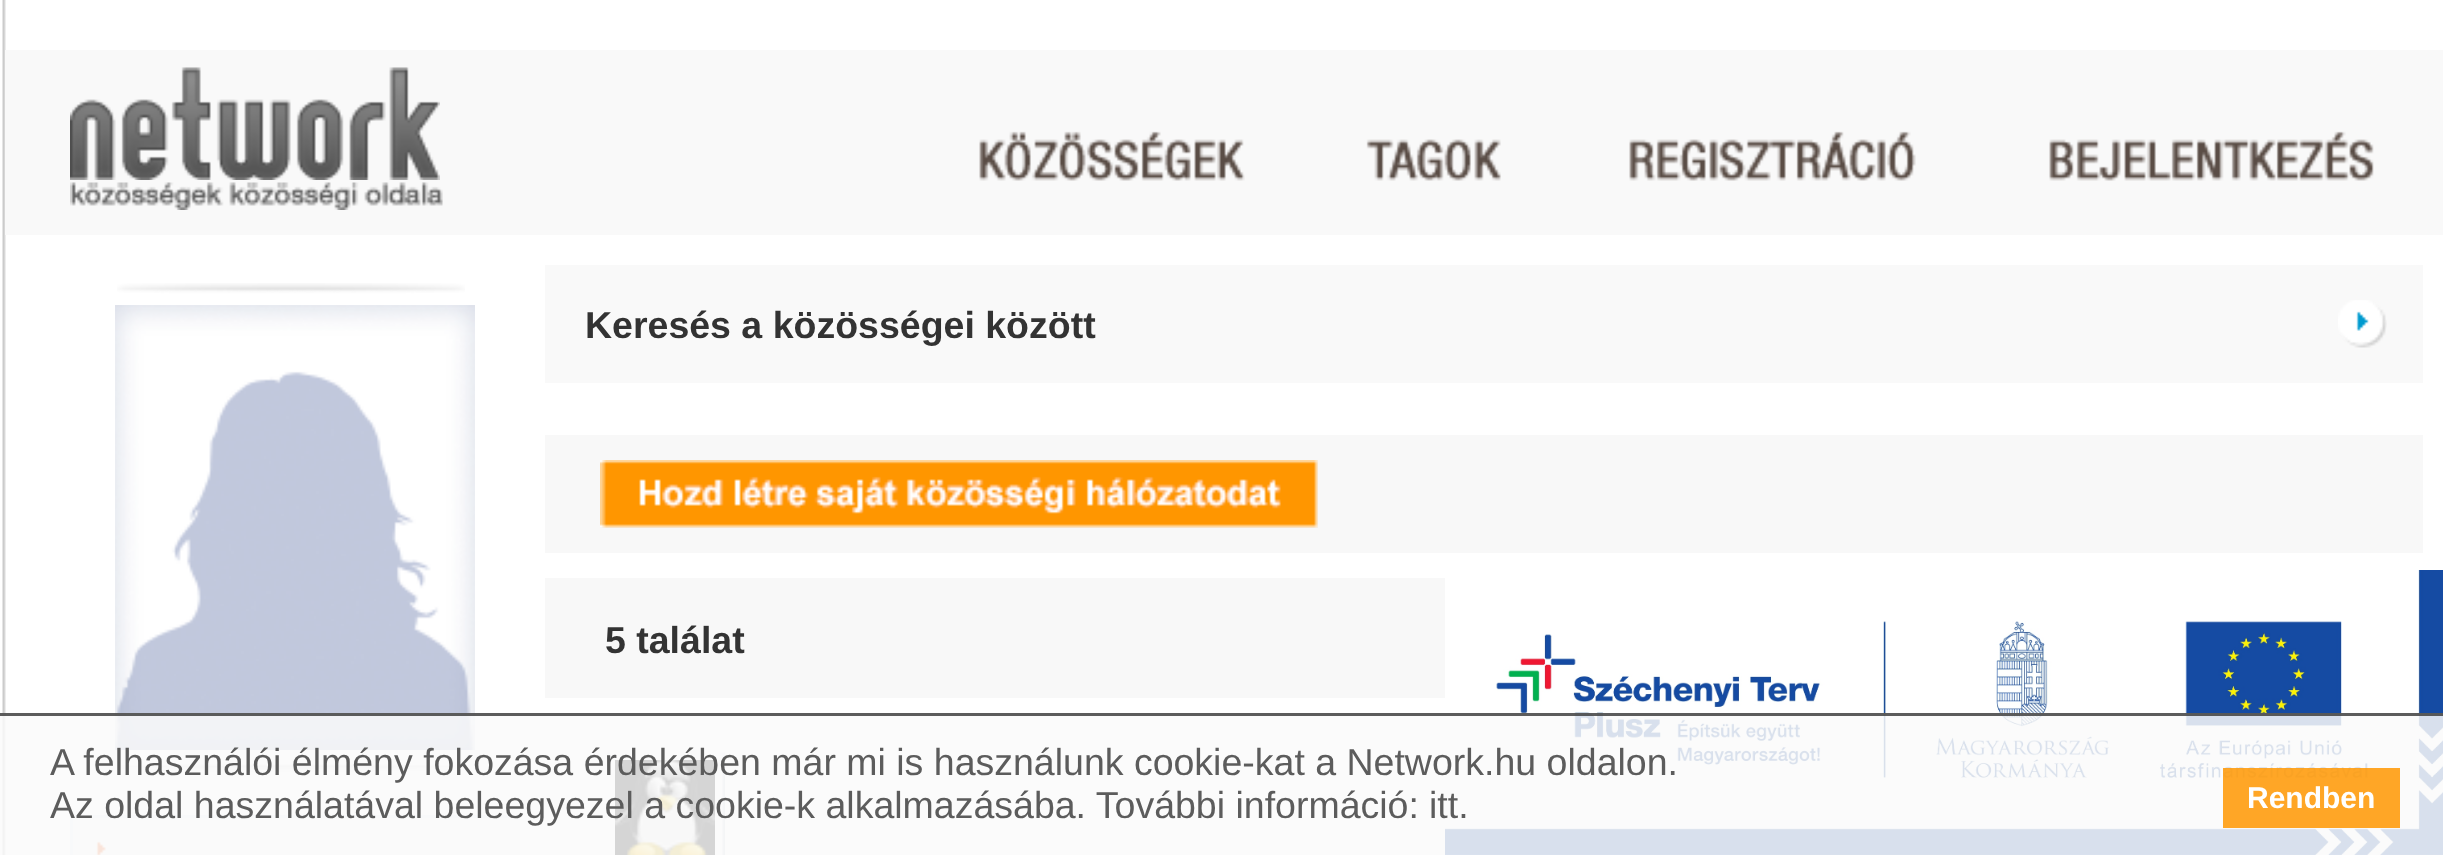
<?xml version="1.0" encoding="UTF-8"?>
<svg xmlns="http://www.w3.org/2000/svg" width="2443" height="855">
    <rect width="100%" height="100%" fill="#FFFFFF"/>
    <image x="2" y="0" width="4" height="855" href="img_01.png"/>
    <rect x="5" y="50" width="2438" height="185" fill="#F9F9F9"/>
    <image x="70" y="67" width="370" height="113" href="img_02.png"/>
    <image x="70" y="182" width="373" height="28" href="img_03.png"/>
    <image x="979" y="131" width="266" height="50" href="img_04.png"/>
    <image x="1366" y="139" width="135" height="42" href="img_05.png"/>
    <image x="1629" y="131" width="287" height="50" href="img_06.png"/>
    <image x="2049" y="131" width="325" height="50" href="img_07.png"/>
    <image x="117" y="283" width="348" height="489" href="img_08.png"/>
    <image x="115" y="305" width="360" height="445" href="img_09.png"/>
    <rect x="73" y="818" width="447" height="37" fill="#F8F8F8"/>
    <rect x="70" y="815" width="450" height="3" fill="#ECEEF7"/>
    <rect x="70" y="815" width="3" height="40" fill="#ECEEF7"/>
    <image x="96" y="841" width="10" height="14" href="img_10.png"/>
    <rect x="545" y="265" width="1878" height="118" fill="#F9F9F9"/>
    <text x="585" y="338" font-family="Liberation Sans" font-size="37.5" font-weight="700" fill="#333333">Keresés a közösségei között</text>
    <image x="2338" y="300" width="49" height="48" href="img_11.png"/>
    <rect x="545" y="435" width="1878" height="118" fill="#F8F8F8"/>
    <rect x="600" y="460" width="718" height="68" fill="#F0F0F0"/>
    <image x="600" y="460" width="718" height="68" href="img_12.png"/>
    <rect x="545" y="578" width="900" height="120" fill="#F8F8F8"/>
    <text x="605" y="653" font-family="Liberation Sans" font-size="37.5" font-weight="700" fill="#333333">5 találat</text>
    <image x="607" y="752" width="118" height="103" href="img_13.png"/>
    <image x="615" y="760" width="100" height="95" href="img_14.png"/>
    <image x="1445" y="570" width="998" height="285" href="img_15.png"/>
    <rect x="0" y="713" width="2443" height="142" fill="#FAFAFA" fill-opacity="0.85"/>
    <rect x="0" y="713" width="2443" height="3" fill="#404040" fill-opacity="0.85"/>
    <text font-family="Liberation Sans" font-size="37.5" fill="#5C5C5C">
        <tspan x="50" y="775">A felhasználói élmény fokozása érdekében már mi is használunk cookie-kat a Network.hu oldalon.</tspan>
        <tspan x="50" y="818">Az oldal használatával beleegyezel a cookie-k alkalmazásába. További információ:</tspan>
    </text>
    <text x="1429" y="818" font-family="Liberation Sans" font-size="37.5" fill="#5C5C5C">itt.</text>
    <rect x="2223" y="768" width="177" height="60" fill="#FF9600" fill-opacity="0.85"/>
    <text x="2247" y="808" font-family="Liberation Sans" font-size="30" font-weight="700" fill="#FFFFFF">Rendben</text>
</svg>
